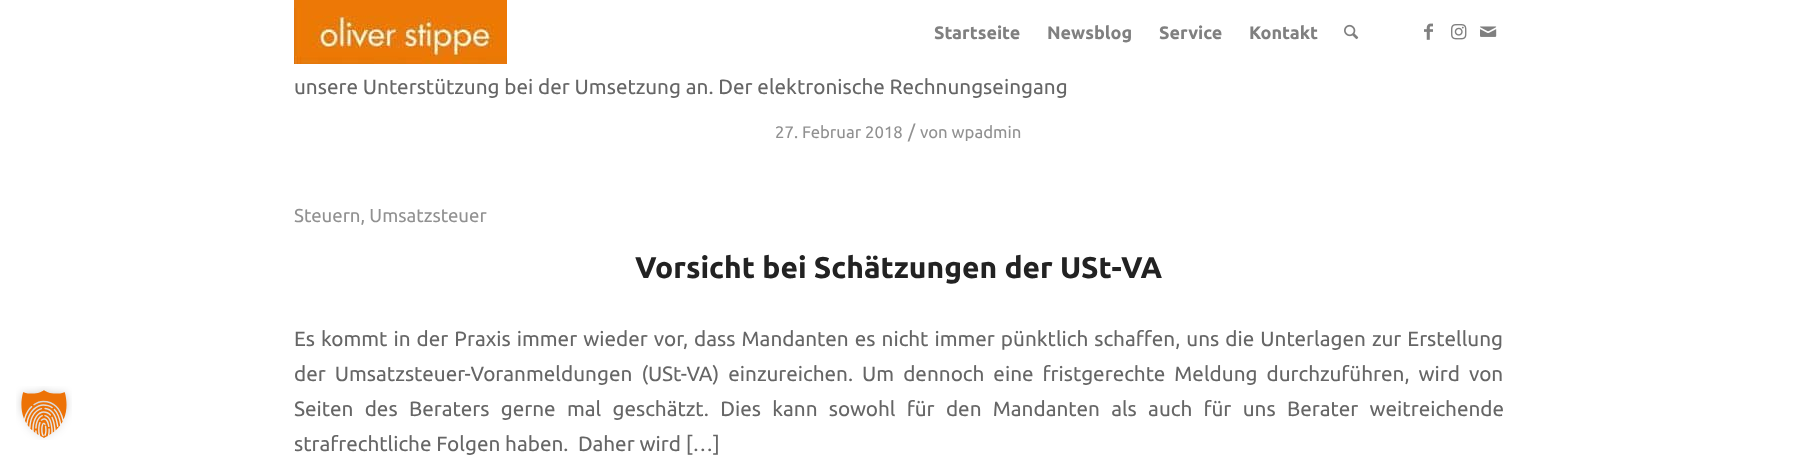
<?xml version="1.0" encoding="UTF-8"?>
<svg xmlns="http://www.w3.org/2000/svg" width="1797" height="458">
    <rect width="100%" height="100%" fill="#FFFFFF"/>
    <image x="16" y="386" width="56" height="54" href="img_01.png"/>
    <image x="294" y="0" width="213" height="64" href="img_02.png"/>
    <text x="934" y="39" font-family="Ubuntu" font-size="18" font-weight="700" fill="#808080">Startseite</text>
    <text x="1047" y="39" font-family="Ubuntu" font-size="18" font-weight="700" fill="#808080">Newsblog</text>
    <text x="1159" y="39" font-family="Ubuntu" font-size="18" font-weight="700" fill="#808080">Service</text>
    <text x="1249" y="39" font-family="Ubuntu" font-size="18" font-weight="700" fill="#808080">Kontakt</text>
    <image x="1344" y="24" width="15" height="16" href="img_03.png"/>
    <image x="1424" y="23" width="9" height="17" href="img_04.png"/>
    <image x="1451" y="24" width="16" height="16" href="img_05.png"/>
    <image x="1480" y="26" width="17" height="11" href="img_06.png"/>
    <text x="294" y="94" font-family="Ubuntu" font-size="20.7" fill="#666666">unsere Unterstützung bei der Umsetzung an. Der elektronische Rechnungseingang</text>
    <text x="775" y="138" font-family="Ubuntu" font-size="16.75" fill="#919191">27. Februar 2018</text>
    <text x="908" y="138" font-family="Ubuntu" font-size="18.6" fill="#919191">/</text>
    <text x="920" y="138" font-family="Ubuntu" font-size="16.75" fill="#919191">von wpadmin</text>
    <text x="294" y="222" font-family="Ubuntu" font-size="18.6" fill="#919191">Steuern, Umsatzsteuer</text>
    <text x="635" y="278" font-family="Ubuntu" font-size="30" font-weight="700" fill="#222222">Vorsicht bei Schätzungen der USt-VA</text>
    <text font-family="Ubuntu" font-size="20.7" fill="#666666" xml:space="preserve"><tspan x="294" y="346" word-spacing="1.25">Es kommt in der Praxis immer wieder vor, dass Mandanten es nicht immer pünktlich schaffen, uns die Unterlagen zur Erstellung</tspan><tspan x="294" y="381" word-spacing="4.25">der Umsatzsteuer-Voranmeldungen (USt-VA) einzureichen. Um dennoch eine fristgerechte Meldung durchzuführen, wird von</tspan><tspan x="294" y="416" word-spacing="6.5">Seiten des Beraters gerne mal geschätzt. Dies kann sowohl für den Mandanten als auch für uns Berater weitreichende</tspan><tspan x="294" y="451">strafrechtliche Folgen haben.  Daher wird […]</tspan></text>
</svg>
